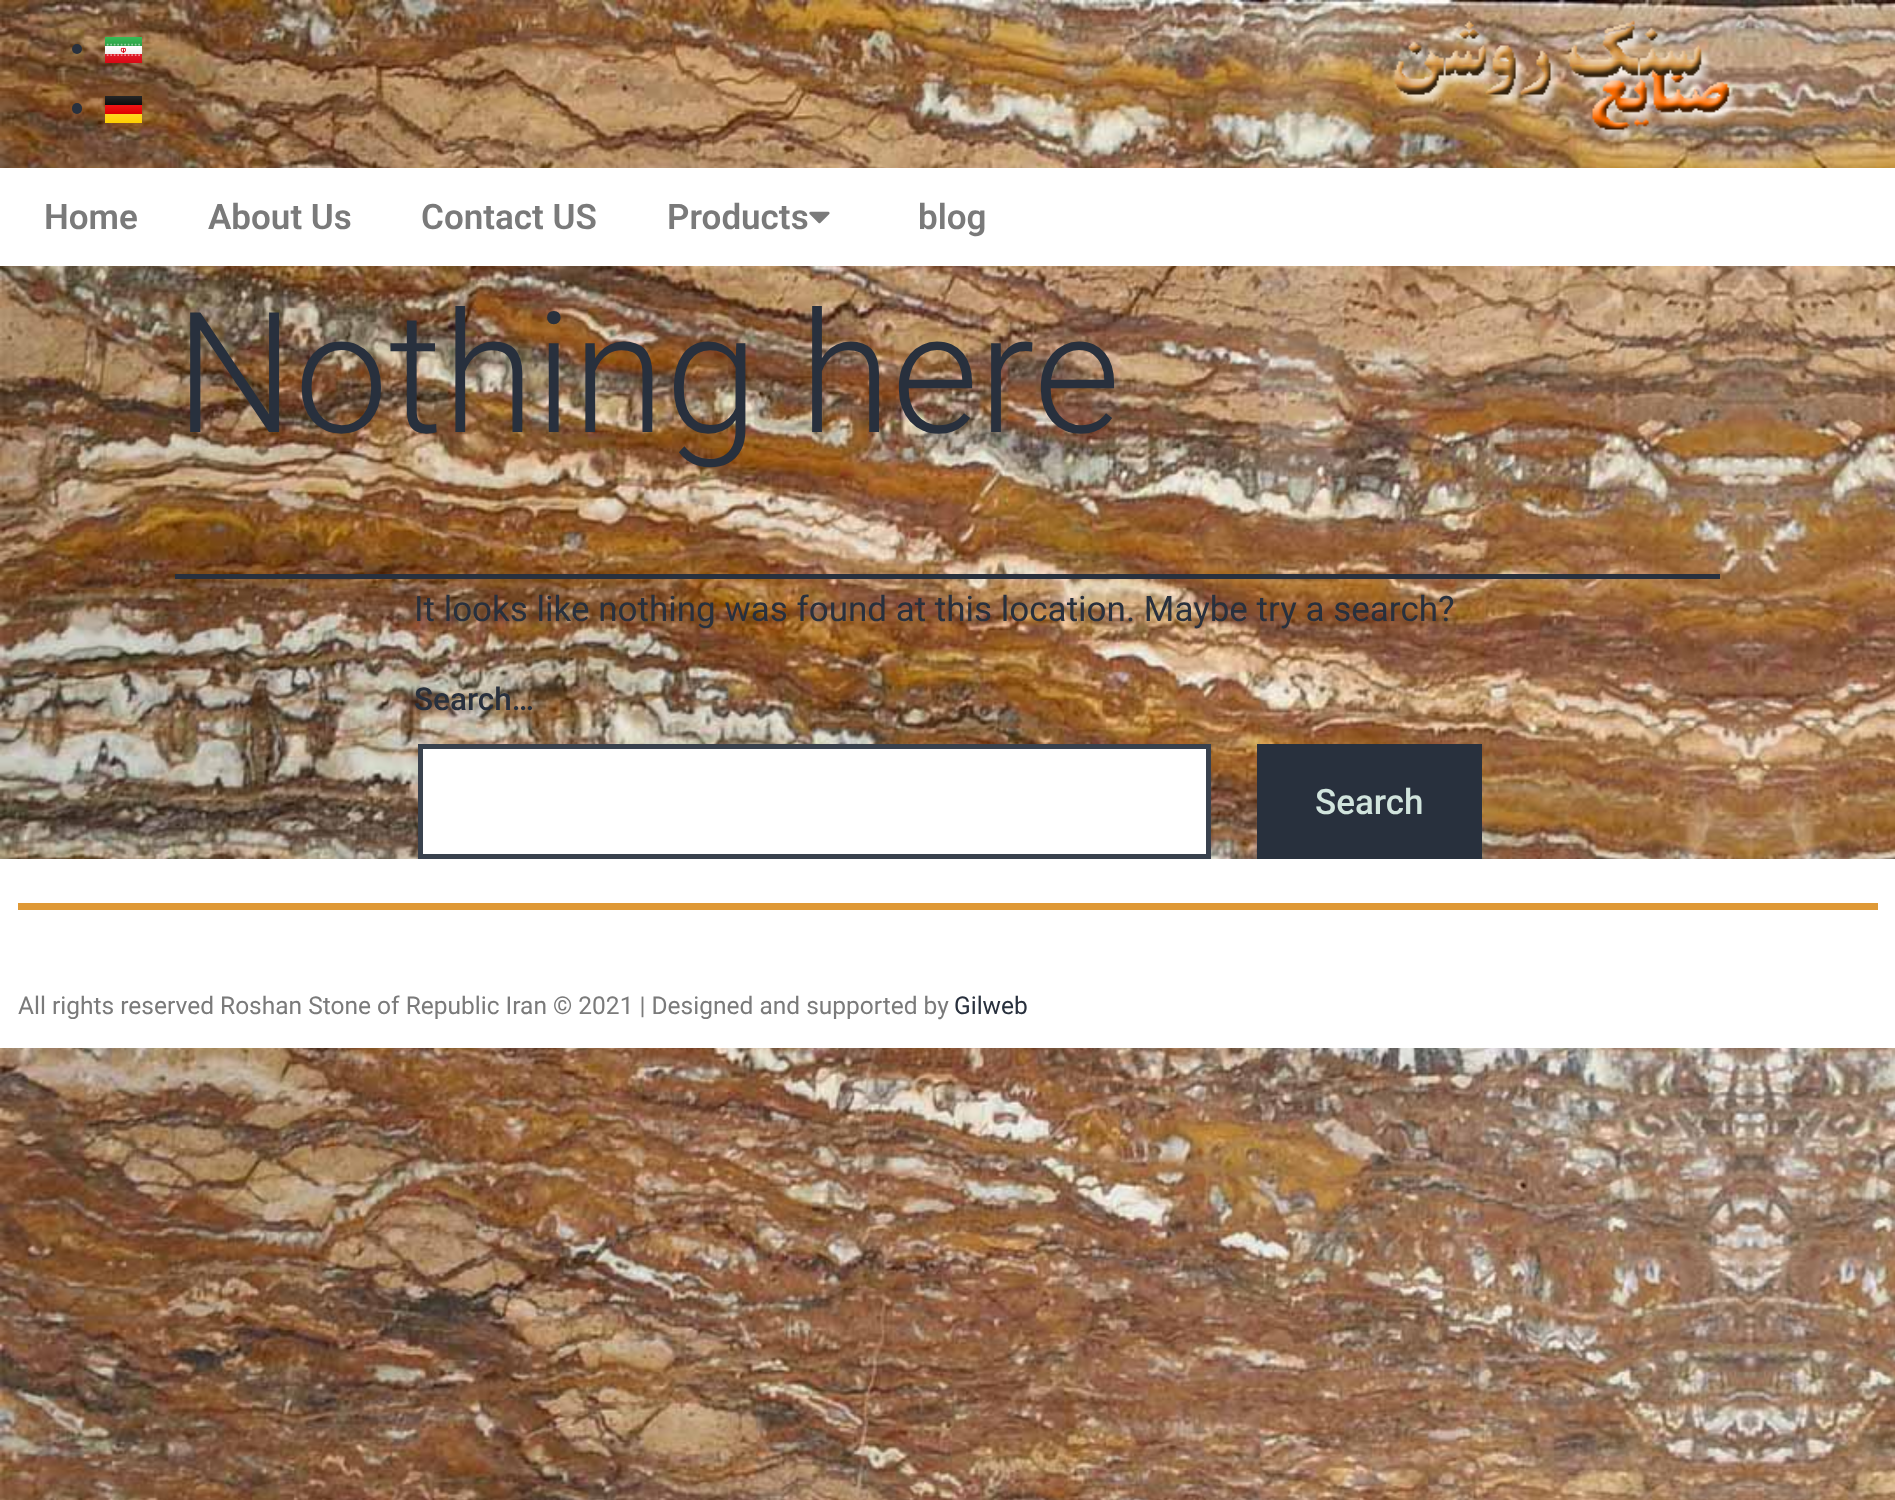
<?xml version="1.0" encoding="UTF-8"?>
<svg xmlns="http://www.w3.org/2000/svg" width="1895" height="1500">
    <defs>
        <linearGradient id="g1" gradientUnits="userSpaceOnUse" x1="123" y1="96" x2="123" y2="105"><stop offset="0" stop-color="#262626"/><stop offset="1" stop-color="#0D0D0D"/></linearGradient>
        <linearGradient id="g2" gradientUnits="userSpaceOnUse" x1="123" y1="105" x2="123" y2="114"><stop offset="0" stop-color="#F01515"/><stop offset="1" stop-color="#DE0000"/></linearGradient>
        <linearGradient id="g3" gradientUnits="userSpaceOnUse" x1="123" y1="114" x2="123" y2="123"><stop offset="0" stop-color="#FFD521"/><stop offset="1" stop-color="#FFCF00"/></linearGradient>
    </defs>
    <rect width="100%" height="100%" fill="#FFFFFF"/>
    <image x="0" y="0" width="1895" height="1500" href="img_01.png"/>
    <circle cx="77" cy="49" r="5" fill="#28303D"/>
    <image x="105" y="37" width="37" height="26" href="img_02.png"/>
    <rect x="105" y="96" width="37" height="9" fill="url(#g1)"/>
    <rect x="72" y="103" width="10" height="11" rx="5" fill="#28303D"/>
    <rect x="105" y="105" width="37" height="9" fill="url(#g2)"/>
    <rect x="105" y="114" width="37" height="9" fill="url(#g3)"/>
    <image x="1394" y="20" width="346" height="123" href="img_03.png"/>
    <rect x="0" y="168" width="1895" height="98" fill="#FFFFFF"/>
    <text x="44" y="229" font-family="Roboto" font-size="35" font-weight="600" fill="#7A7A7A">Home</text>
    <text x="208" y="229" font-family="Roboto" font-size="35" font-weight="600" fill="#7A7A7A">About Us</text>
    <text x="421" y="229" font-family="Roboto" font-size="35" font-weight="600" fill="#7A7A7A">Contact US</text>
    <text x="667" y="229" font-family="Roboto" font-size="35" font-weight="600" fill="#7A7A7A">Products</text>
    <image x="809" y="211" width="21" height="13" href="img_04.png"/>
    <text x="918" y="229" font-family="Roboto" font-size="35" font-weight="600" fill="#7A7A7A">blog</text>
    <rect x="175" y="574" width="1545" height="5" fill="#28303D"/>
    <text x="175" y="432" font-family="Roboto" font-size="168" font-weight="300" fill="#28303D">Nothing here</text>
    <text x="414" y="621" font-family="Roboto" font-size="35" fill="#28303D">It looks like nothing was found at this location. Maybe try a search?</text>
    <text x="414" y="710" font-family="Roboto" font-size="31.5" font-weight="500" fill="#28303D">Search…</text>
    <rect x="420.5" y="746.5" width="788" height="110" fill="#FFFFFF" stroke="#39414D" stroke-width="5"/>
    <rect x="1257" y="744" width="225" height="115" fill="#28303D"/>
    <text x="1315" y="814" font-family="Roboto" font-size="35" font-weight="500" fill="#D1E4DD">Search</text>
    <rect x="0" y="859" width="1895" height="189" fill="#FFFFFF"/>
    <rect x="18" y="903" width="1860" height="7" fill="#DF9936"/>
    <text x="18" y="1014" font-family="Roboto" font-size="24.5" fill="#7A7A7A">All rights reserved Roshan Stone of Republic Iran © 2021 | Designed and supported by</text>
    <text x="954" y="1014" font-family="Roboto" font-size="24.5" fill="#28303D">Gilweb</text>
</svg>
